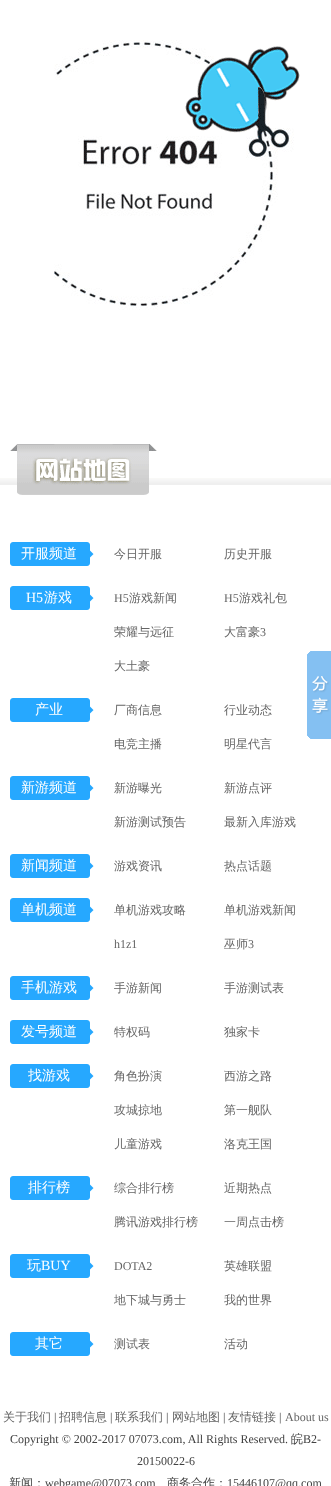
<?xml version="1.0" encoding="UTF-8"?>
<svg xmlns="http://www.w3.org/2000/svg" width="331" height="1486">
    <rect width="100%" height="100%" fill="#FFFFFF"/>
    <image x="0" y="478" width="331" height="7" href="img_01.png"/>
    <image x="54" y="40" width="246" height="270" href="img_02.png"/>
    <image x="10" y="444" width="147" height="51" href="img_03.png"/>
    <image x="10" y="542" width="84" height="24" href="img_04.png"/>
    <text x="21" y="558" font-family="WenQuanYi Zen Hei" font-size="14" font-weight="500" fill="#FFFFFF">开服频道</text>
    <text x="114" y="558" font-family="WenQuanYi Zen Hei" font-size="12" font-weight="500" fill="#656565">今日开服</text>
    <text x="224" y="558" font-family="WenQuanYi Zen Hei" font-size="12" font-weight="500" fill="#656565">历史开服</text>
    <image x="10" y="586" width="84" height="24" href="img_04.png"/>
    <text x="26" y="602" font-family="Liberation Serif" font-size="14" fill="#FFFFFF">H5</text>
    <text x="44" y="602" font-family="WenQuanYi Zen Hei" font-size="14" font-weight="500" fill="#FFFFFF">游戏</text>
    <text x="114" y="602" font-family="Liberation Serif" font-size="12" fill="#656565">H5</text>
    <text x="129" y="602" font-family="WenQuanYi Zen Hei" font-size="12" font-weight="500" fill="#656565">游戏新闻</text>
    <text x="224" y="602" font-family="Liberation Serif" font-size="12" fill="#656565">H5</text>
    <text x="239" y="602" font-family="WenQuanYi Zen Hei" font-size="12" font-weight="500" fill="#656565">游戏礼包</text>
    <text x="114" y="636" font-family="WenQuanYi Zen Hei" font-size="12" font-weight="500" fill="#656565">荣耀与远征</text>
    <text x="224" y="636" font-family="WenQuanYi Zen Hei" font-size="12" font-weight="500" fill="#656565">大富豪</text>
    <text x="260" y="636" font-family="Liberation Serif" font-size="12" fill="#656565">3</text>
    <text x="114" y="670" font-family="WenQuanYi Zen Hei" font-size="12" font-weight="500" fill="#656565">大土豪</text>
    <image x="10" y="698" width="84" height="24" href="img_04.png"/>
    <text x="35" y="714" font-family="WenQuanYi Zen Hei" font-size="14" font-weight="500" fill="#FFFFFF">产业</text>
    <text x="114" y="714" font-family="WenQuanYi Zen Hei" font-size="12" font-weight="500" fill="#656565">厂商信息</text>
    <text x="224" y="714" font-family="WenQuanYi Zen Hei" font-size="12" font-weight="500" fill="#656565">行业动态</text>
    <text x="114" y="748" font-family="WenQuanYi Zen Hei" font-size="12" font-weight="500" fill="#656565">电竞主播</text>
    <text x="224" y="748" font-family="WenQuanYi Zen Hei" font-size="12" font-weight="500" fill="#656565">明星代言</text>
    <image x="10" y="776" width="84" height="24" href="img_04.png"/>
    <text x="21" y="792" font-family="WenQuanYi Zen Hei" font-size="14" font-weight="500" fill="#FFFFFF">新游频道</text>
    <text x="114" y="792" font-family="WenQuanYi Zen Hei" font-size="12" font-weight="500" fill="#656565">新游曝光</text>
    <text x="224" y="792" font-family="WenQuanYi Zen Hei" font-size="12" font-weight="500" fill="#656565">新游点评</text>
    <text x="114" y="826" font-family="WenQuanYi Zen Hei" font-size="12" font-weight="500" fill="#656565">新游测试预告</text>
    <text x="224" y="826" font-family="WenQuanYi Zen Hei" font-size="12" font-weight="500" fill="#656565">最新入库游戏</text>
    <image x="10" y="854" width="84" height="24" href="img_04.png"/>
    <text x="21" y="870" font-family="WenQuanYi Zen Hei" font-size="14" font-weight="500" fill="#FFFFFF">新闻频道</text>
    <text x="114" y="870" font-family="WenQuanYi Zen Hei" font-size="12" font-weight="500" fill="#656565">游戏资讯</text>
    <text x="224" y="870" font-family="WenQuanYi Zen Hei" font-size="12" font-weight="500" fill="#656565">热点话题</text>
    <image x="10" y="898" width="84" height="24" href="img_04.png"/>
    <text x="21" y="914" font-family="WenQuanYi Zen Hei" font-size="14" font-weight="500" fill="#FFFFFF">单机频道</text>
    <text x="114" y="914" font-family="WenQuanYi Zen Hei" font-size="12" font-weight="500" fill="#656565">单机游戏攻略</text>
    <text x="224" y="914" font-family="WenQuanYi Zen Hei" font-size="12" font-weight="500" fill="#656565">单机游戏新闻</text>
    <text x="114" y="948" font-family="Liberation Serif" font-size="12" fill="#656565">h1z1</text>
    <text x="224" y="948" font-family="WenQuanYi Zen Hei" font-size="12" font-weight="500" fill="#656565">巫师</text>
    <text x="248" y="948" font-family="Liberation Serif" font-size="12" fill="#656565">3</text>
    <image x="10" y="976" width="84" height="24" href="img_04.png"/>
    <text x="21" y="992" font-family="WenQuanYi Zen Hei" font-size="14" font-weight="500" fill="#FFFFFF">手机游戏</text>
    <text x="114" y="992" font-family="WenQuanYi Zen Hei" font-size="12" font-weight="500" fill="#656565">手游新闻</text>
    <text x="224" y="992" font-family="WenQuanYi Zen Hei" font-size="12" font-weight="500" fill="#656565">手游测试表</text>
    <image x="10" y="1020" width="84" height="24" href="img_04.png"/>
    <text x="21" y="1036" font-family="WenQuanYi Zen Hei" font-size="14" font-weight="500" fill="#FFFFFF">发号频道</text>
    <text x="114" y="1036" font-family="WenQuanYi Zen Hei" font-size="12" font-weight="500" fill="#656565">特权码</text>
    <text x="224" y="1036" font-family="WenQuanYi Zen Hei" font-size="12" font-weight="500" fill="#656565">独家卡</text>
    <image x="10" y="1064" width="84" height="24" href="img_04.png"/>
    <text x="28" y="1080" font-family="WenQuanYi Zen Hei" font-size="14" font-weight="500" fill="#FFFFFF">找游戏</text>
    <text x="114" y="1080" font-family="WenQuanYi Zen Hei" font-size="12" font-weight="500" fill="#656565">角色扮演</text>
    <text x="224" y="1080" font-family="WenQuanYi Zen Hei" font-size="12" font-weight="500" fill="#656565">西游之路</text>
    <text x="114" y="1114" font-family="WenQuanYi Zen Hei" font-size="12" font-weight="500" fill="#656565">攻城掠地</text>
    <text x="224" y="1114" font-family="WenQuanYi Zen Hei" font-size="12" font-weight="500" fill="#656565">第一舰队</text>
    <text x="114" y="1148" font-family="WenQuanYi Zen Hei" font-size="12" font-weight="500" fill="#656565">儿童游戏</text>
    <text x="224" y="1148" font-family="WenQuanYi Zen Hei" font-size="12" font-weight="500" fill="#656565">洛克王国</text>
    <image x="10" y="1176" width="84" height="24" href="img_04.png"/>
    <text x="28" y="1192" font-family="WenQuanYi Zen Hei" font-size="14" font-weight="500" fill="#FFFFFF">排行榜</text>
    <text x="114" y="1192" font-family="WenQuanYi Zen Hei" font-size="12" font-weight="500" fill="#656565">综合排行榜</text>
    <text x="224" y="1192" font-family="WenQuanYi Zen Hei" font-size="12" font-weight="500" fill="#656565">近期热点</text>
    <text x="114" y="1226" font-family="WenQuanYi Zen Hei" font-size="12" font-weight="500" fill="#656565">腾讯游戏排行榜</text>
    <text x="224" y="1226" font-family="WenQuanYi Zen Hei" font-size="12" font-weight="500" fill="#656565">一周点击榜</text>
    <image x="10" y="1254" width="84" height="24" href="img_04.png"/>
    <text x="27" y="1270" font-family="WenQuanYi Zen Hei" font-size="14" font-weight="500" fill="#FFFFFF">玩</text>
    <text x="41" y="1270" font-family="Liberation Serif" font-size="14" fill="#FFFFFF">BUY</text>
    <text x="114" y="1270" font-family="Liberation Serif" font-size="12" fill="#656565">DOTA2</text>
    <text x="224" y="1270" font-family="WenQuanYi Zen Hei" font-size="12" font-weight="500" fill="#656565">英雄联盟</text>
    <text x="114" y="1304" font-family="WenQuanYi Zen Hei" font-size="12" font-weight="500" fill="#656565">地下城与勇士</text>
    <text x="224" y="1304" font-family="WenQuanYi Zen Hei" font-size="12" font-weight="500" fill="#656565">我的世界</text>
    <image x="10" y="1332" width="84" height="24" href="img_04.png"/>
    <text x="35" y="1348" font-family="WenQuanYi Zen Hei" font-size="14" font-weight="500" fill="#FFFFFF">其它</text>
    <text x="114" y="1348" font-family="WenQuanYi Zen Hei" font-size="12" font-weight="500" fill="#656565">测试表</text>
    <text x="224" y="1348" font-family="WenQuanYi Zen Hei" font-size="12" font-weight="500" fill="#656565">活动</text>
    <image x="307" y="651" width="24" height="88" href="img_05.png"/>
    <text x="3" y="1421" font-family="WenQuanYi Zen Hei" font-size="12" font-weight="500" fill="#656565">关于我们</text>
    <text x="54" y="1421" font-family="Liberation Serif" font-size="12" fill="#414141">|</text>
    <text x="59" y="1421" font-family="WenQuanYi Zen Hei" font-size="12" font-weight="500" fill="#656565">招聘信息</text>
    <text x="110" y="1421" font-family="Liberation Serif" font-size="12" fill="#414141">|</text>
    <text x="115" y="1421" font-family="WenQuanYi Zen Hei" font-size="12" font-weight="500" fill="#656565">联系我们</text>
    <text x="166" y="1421" font-family="Liberation Serif" font-size="12" fill="#414141">|</text>
    <text x="172" y="1421" font-family="WenQuanYi Zen Hei" font-size="12" font-weight="500" fill="#656565">网站地图</text>
    <text x="223" y="1421" font-family="Liberation Serif" font-size="12" fill="#414141">|</text>
    <text x="228" y="1421" font-family="WenQuanYi Zen Hei" font-size="12" font-weight="500" fill="#656565">友情链接</text>
    <text x="279" y="1421" font-family="Liberation Serif" font-size="12" fill="#414141">|</text>
    <text x="285" y="1421" font-family="Liberation Serif" font-size="12" fill="#656565">About us</text>
    <text x="10" y="1443" font-family="Liberation Serif" font-size="12" fill="#414141">Copyright © 2002-2017 07073.com, All Rights Reserved.</text>
    <text x="291" y="1443" font-family="WenQuanYi Zen Hei" font-size="12" font-weight="500" fill="#414141">皖</text>
    <text x="303" y="1443" font-family="Liberation Serif" font-size="12" fill="#414141">B2-</text>
    <text x="137" y="1465" font-family="Liberation Serif" font-size="12" fill="#414141">20150022-6</text>
    <text x="9" y="1487" font-family="WenQuanYi Zen Hei" font-size="12" font-weight="500" fill="#414141">新闻：</text>
    <text x="45" y="1487" font-family="Liberation Serif" font-size="12" fill="#414141">webgame@07073.com</text>
    <text x="167" y="1487" font-family="WenQuanYi Zen Hei" font-size="12" font-weight="500" fill="#414141">商务合作：</text>
    <text x="227" y="1487" font-family="Liberation Serif" font-size="12" fill="#414141">15446107@qq.com</text>
</svg>
